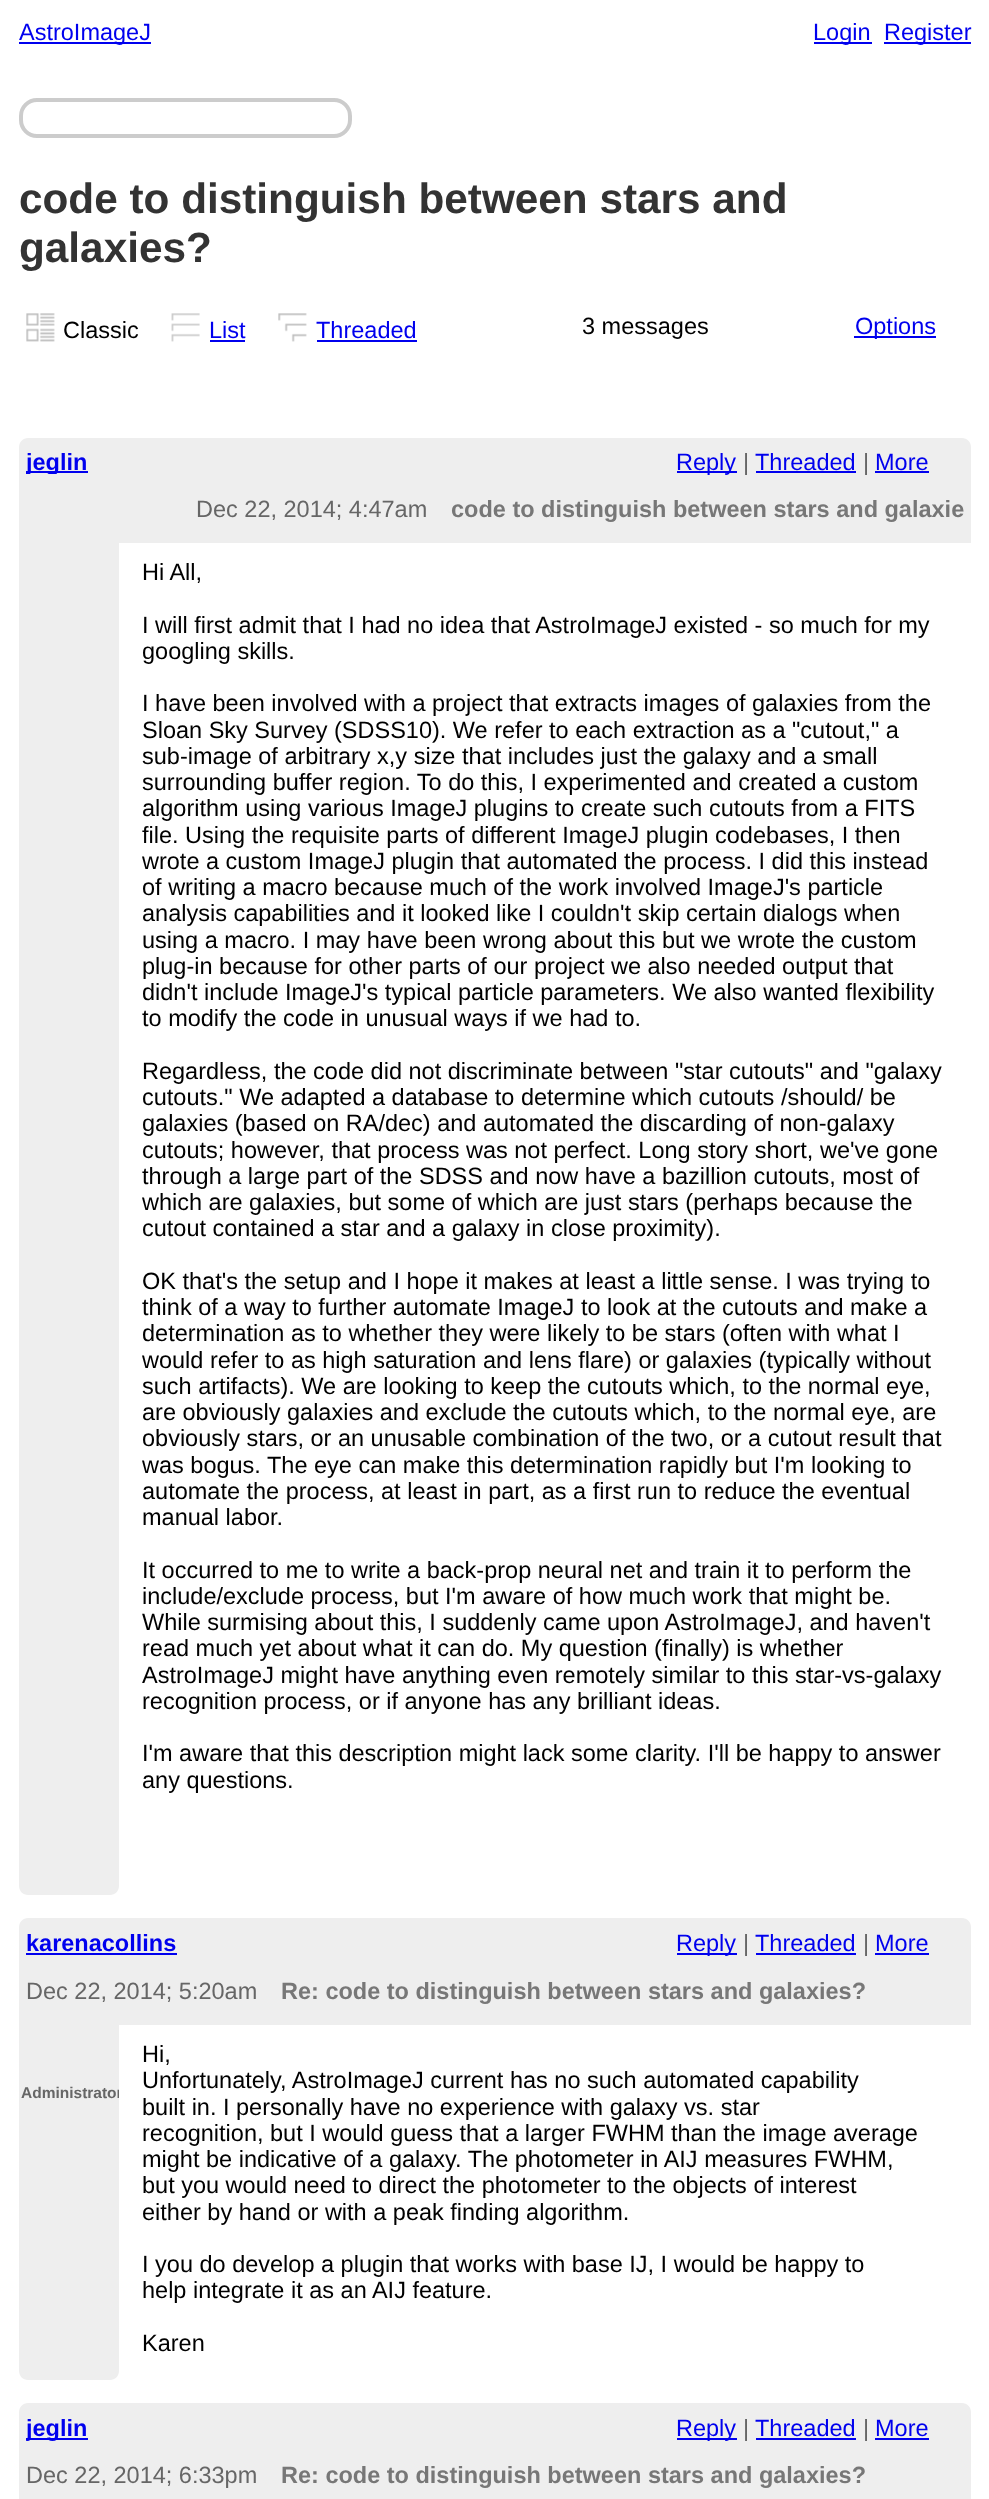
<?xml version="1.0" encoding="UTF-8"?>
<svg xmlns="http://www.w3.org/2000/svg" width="989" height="2499">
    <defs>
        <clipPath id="clip1"><rect x="26" y="448" width="62" height="26"/></clipPath>
        <clipPath id="clip2"><path d="M 19 2018 H 119 V 2371 C 119 2376 115 2380 110 2380 H 28 C 23 2380 19 2376 19 2371 Z"/></clipPath>
        <clipPath id="clip3"><rect x="26" y="2415" width="62" height="26"/></clipPath>
    </defs>
    <rect width="100%" height="100%" fill="#FFFFFF"/>
    <rect x="19" y="42" width="132" height="2" fill="#0000EE"/>
    <text x="19" y="40" font-family="Liberation Sans" font-size="23.5" fill="#0000EE">AstroImageJ</text>
    <rect x="814" y="42" width="58" height="2" fill="#0000EE"/>
    <text x="813" y="40" font-family="Liberation Sans" font-size="23.5" fill="#0000EE">Login</text>
    <rect x="884" y="42" width="87" height="2" fill="#0000EE"/>
    <text x="884" y="40" font-family="Liberation Sans" font-size="23.5" fill="#0000EE">Register</text>
    <rect x="21" y="100" width="329" height="36" rx="16" fill="none" stroke="#CCCCCC" stroke-width="4"/>
    <text font-family="Liberation Sans" font-size="42.3" font-weight="700" fill="#333333">
        <tspan x="19" y="213">code to distinguish between stars and</tspan>
        <tspan x="19" y="262">galaxies?</tspan>
    </text>
    <image x="26" y="313" width="29" height="29" href="img_01.png"/>
    <text x="63" y="338" font-family="Liberation Sans" font-size="23.5" fill="#000000">Classic</text>
    <image x="171" y="313" width="29" height="29" href="img_02.png"/>
    <text x="209" y="338" font-family="Liberation Sans" font-size="23.5" fill="#0000EE">List</text>
    <rect x="210" y="340" width="35" height="2" fill="#0000EE"/>
    <image x="278" y="313" width="29" height="29" href="img_03.png"/>
    <text x="316" y="338" font-family="Liberation Sans" font-size="23.5" fill="#0000EE">Threaded</text>
    <rect x="317" y="340" width="100" height="2" fill="#0000EE"/>
    <text x="582" y="334" font-family="Liberation Sans" font-size="23.5" fill="#000000">3 messages</text>
    <rect x="854" y="336" width="82" height="2" fill="#0000EE"/>
    <text x="855" y="334" font-family="Liberation Sans" font-size="23.5" fill="#0000EE">Options</text>
    <path d="M 28 438 H 962 C 967 438 971 442 971 447 V 543 H 19 V 447 C 19 442 23 438 28 438 Z" fill="#EEEEEE"/>
    <rect x="26" y="471" width="62" height="2" fill="#0000EE"/>
    <g clip-path="url(#clip1)">
        <text x="26" y="470" font-family="Liberation Sans" font-size="23.5" font-weight="700" fill="#0000EE">jeglin</text>
    </g>
    <rect x="677" y="471" width="60" height="2" fill="#0000EE"/>
    <text x="676" y="470" font-family="Liberation Sans" font-size="23.5" fill="#0000EE">Reply</text>
    <text x="743" y="470" font-family="Liberation Sans" font-size="23.5" fill="#666666">|</text>
    <text x="755" y="470" font-family="Liberation Sans" font-size="23.5" fill="#0000EE">Threaded</text>
    <rect x="756" y="471" width="100" height="2" fill="#0000EE"/>
    <text x="863" y="470" font-family="Liberation Sans" font-size="23.5" fill="#666666">|</text>
    <text x="875" y="470" font-family="Liberation Sans" font-size="23.5" fill="#0000EE">More</text>
    <rect x="875" y="471" width="54" height="2" fill="#0000EE"/>
    <text x="196" y="517" font-family="Liberation Sans" font-size="23.5" fill="#666666">Dec 22, 2014; 4:47am</text>
    <text x="451" y="517" font-family="Liberation Sans" font-size="23.5" font-weight="700" fill="#777777">code to distinguish between stars and galaxie</text>
    <path d="M 19 536 H 119 V 1886 C 119 1891 115 1895 110 1895 H 28 C 23 1895 19 1891 19 1886 Z" fill="#EEEEEE"/>
    <text x="142" y="580" font-family="Liberation Sans" font-size="23.5" fill="#000000">Hi All,</text>
    <text font-family="Liberation Sans" font-size="23.5" fill="#000000">
        <tspan x="142" y="633">I will first admit that I had no idea that AstroImageJ existed - so much for my</tspan>
        <tspan x="142" y="659">googling skills.</tspan>
    </text>
    <text font-family="Liberation Sans" font-size="23.5" fill="#000000">
        <tspan x="142" y="711">I have been involved with a project that extracts images of galaxies from the</tspan>
        <tspan x="142" y="738">Sloan Sky Survey (SDSS10). We refer to each extraction as a "cutout," a</tspan>
        <tspan x="142" y="764">sub-image of arbitrary x,y size that includes just the galaxy and a small</tspan>
        <tspan x="142" y="790">surrounding buffer region. To do this, I experimented and created a custom</tspan>
        <tspan x="142" y="816">algorithm using various ImageJ plugins to create such cutouts from a FITS</tspan>
        <tspan x="142" y="843">file. Using the requisite parts of different ImageJ plugin codebases, I then</tspan>
        <tspan x="142" y="869">wrote a custom ImageJ plugin that automated the process. I did this instead</tspan>
        <tspan x="142" y="895">of writing a macro because much of the work involved ImageJ's particle</tspan>
        <tspan x="142" y="921">analysis capabilities and it looked like I couldn't skip certain dialogs when</tspan>
        <tspan x="142" y="948">using a macro. I may have been wrong about this but we wrote the custom</tspan>
        <tspan x="142" y="974">plug-in because for other parts of our project we also needed output that</tspan>
        <tspan x="142" y="1000">didn't include ImageJ's typical particle parameters. We also wanted flexibility</tspan>
        <tspan x="142" y="1026">to modify the code in unusual ways if we had to.</tspan>
    </text>
    <text font-family="Liberation Sans" font-size="23.5" fill="#000000">
        <tspan x="142" y="1079">Regardless, the code did not discriminate between "star cutouts" and "galaxy</tspan>
        <tspan x="142" y="1105">cutouts." We adapted a database to determine which cutouts /should/ be</tspan>
        <tspan x="142" y="1131">galaxies (based on RA/dec) and automated the discarding of non-galaxy</tspan>
        <tspan x="142" y="1158">cutouts; however, that process was not perfect. Long story short, we've gone</tspan>
        <tspan x="142" y="1184">through a large part of the SDSS and now have a bazillion cutouts, most of</tspan>
        <tspan x="142" y="1210">which are galaxies, but some of which are just stars (perhaps because the</tspan>
        <tspan x="142" y="1236">cutout contained a star and a galaxy in close proximity).</tspan>
    </text>
    <text font-family="Liberation Sans" font-size="23.5" fill="#000000">
        <tspan x="142" y="1289">OK that's the setup and I hope it makes at least a little sense. I was trying to</tspan>
        <tspan x="142" y="1315">think of a way to further automate ImageJ to look at the cutouts and make a</tspan>
        <tspan x="142" y="1341">determination as to whether they were likely to be stars (often with what I</tspan>
        <tspan x="142" y="1368">would refer to as high saturation and lens flare) or galaxies (typically without</tspan>
        <tspan x="142" y="1394">such artifacts). We are looking to keep the cutouts which, to the normal eye,</tspan>
        <tspan x="142" y="1420">are obviously galaxies and exclude the cutouts which, to the normal eye, are</tspan>
        <tspan x="142" y="1446">obviously stars, or an unusable combination of the two, or a cutout result that</tspan>
        <tspan x="142" y="1473">was bogus. The eye can make this determination rapidly but I'm looking to</tspan>
        <tspan x="142" y="1499">automate the process, at least in part, as a first run to reduce the eventual</tspan>
        <tspan x="142" y="1525">manual labor.</tspan>
    </text>
    <text font-family="Liberation Sans" font-size="23.5" fill="#000000">
        <tspan x="142" y="1578">It occurred to me to write a back-prop neural net and train it to perform the</tspan>
        <tspan x="142" y="1604">include/exclude process, but I'm aware of how much work that might be.</tspan>
        <tspan x="142" y="1630">While surmising about this, I suddenly came upon AstroImageJ, and haven't</tspan>
        <tspan x="142" y="1656">read much yet about what it can do. My question (finally) is whether</tspan>
        <tspan x="142" y="1683">AstroImageJ might have anything even remotely similar to this star-vs-galaxy</tspan>
        <tspan x="142" y="1709">recognition process, or if anyone has any brilliant ideas.</tspan>
    </text>
    <text font-family="Liberation Sans" font-size="23.5" fill="#000000">
        <tspan x="142" y="1761">I'm aware that this description might lack some clarity. I'll be happy to answer</tspan>
        <tspan x="142" y="1788">any questions.</tspan>
    </text>
    <path d="M 28 1918 H 962 C 967 1918 971 1922 971 1927 V 2025 H 19 V 1927 C 19 1922 23 1918 28 1918 Z" fill="#EEEEEE"/>
    <text x="26" y="1951" font-family="Liberation Sans" font-size="23.5" font-weight="700" fill="#0000EE">karenacollins</text>
    <rect x="26" y="1953" width="151" height="2" fill="#0000EE"/>
    <rect x="677" y="1953" width="60" height="2" fill="#0000EE"/>
    <text x="676" y="1951" font-family="Liberation Sans" font-size="23.5" fill="#0000EE">Reply</text>
    <text x="743" y="1951" font-family="Liberation Sans" font-size="23.5" fill="#666666">|</text>
    <text x="755" y="1951" font-family="Liberation Sans" font-size="23.5" fill="#0000EE">Threaded</text>
    <rect x="756" y="1953" width="100" height="2" fill="#0000EE"/>
    <text x="863" y="1951" font-family="Liberation Sans" font-size="23.5" fill="#666666">|</text>
    <text x="875" y="1951" font-family="Liberation Sans" font-size="23.5" fill="#0000EE">More</text>
    <rect x="875" y="1953" width="54" height="2" fill="#0000EE"/>
    <text x="26" y="1999" font-family="Liberation Sans" font-size="23.5" fill="#666666">Dec 22, 2014; 5:20am</text>
    <text x="281" y="1999" font-family="Liberation Sans" font-size="23.5" font-weight="700" fill="#777777">Re: code to distinguish between stars and galaxies?</text>
    <path d="M 19 2018 H 119 V 2371 C 119 2376 115 2380 110 2380 H 28 C 23 2380 19 2376 19 2371 Z" fill="#EEEEEE"/>
    <g clip-path="url(#clip2)">
        <text x="21" y="2098" font-family="Liberation Sans" font-size="15.5" font-weight="700" fill="#666666">Administrator</text>
    </g>
    <text font-family="Liberation Sans" font-size="23.5" fill="#000000">
        <tspan x="142" y="2062">Hi,</tspan>
        <tspan x="142" y="2088">Unfortunately, AstroImageJ current has no such automated capability</tspan>
        <tspan x="142" y="2115">built in. I personally have no experience with galaxy vs. star</tspan>
        <tspan x="142" y="2141">recognition, but I would guess that a larger FWHM than the image average</tspan>
        <tspan x="142" y="2167">might be indicative of a galaxy. The photometer in AIJ measures FWHM,</tspan>
        <tspan x="142" y="2193">but you would need to direct the photometer to the objects of interest</tspan>
        <tspan x="142" y="2220">either by hand or with a peak finding algorithm.</tspan>
    </text>
    <text font-family="Liberation Sans" font-size="23.5" fill="#000000">
        <tspan x="142" y="2272">I you do develop a plugin that works with base IJ, I would be happy to</tspan>
        <tspan x="142" y="2298">help integrate it as an AIJ feature.</tspan>
    </text>
    <text x="142" y="2351" font-family="Liberation Sans" font-size="23.5" fill="#000000">Karen</text>
    <path d="M 28 2403 H 962 C 967 2403 971 2407 971 2412 V 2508 H 19 V 2412 C 19 2407 23 2403 28 2403 Z" fill="#EEEEEE"/>
    <rect x="26" y="2438" width="62" height="2" fill="#0000EE"/>
    <g clip-path="url(#clip3)">
        <text x="26" y="2436" font-family="Liberation Sans" font-size="23.5" font-weight="700" fill="#0000EE">jeglin</text>
    </g>
    <rect x="677" y="2438" width="60" height="2" fill="#0000EE"/>
    <text x="676" y="2436" font-family="Liberation Sans" font-size="23.5" fill="#0000EE">Reply</text>
    <text x="743" y="2436" font-family="Liberation Sans" font-size="23.5" fill="#666666">|</text>
    <text x="755" y="2436" font-family="Liberation Sans" font-size="23.5" fill="#0000EE">Threaded</text>
    <rect x="756" y="2438" width="100" height="2" fill="#0000EE"/>
    <text x="863" y="2436" font-family="Liberation Sans" font-size="23.5" fill="#666666">|</text>
    <text x="875" y="2436" font-family="Liberation Sans" font-size="23.5" fill="#0000EE">More</text>
    <rect x="875" y="2438" width="54" height="2" fill="#0000EE"/>
    <text x="26" y="2483" font-family="Liberation Sans" font-size="23.5" fill="#666666">Dec 22, 2014; 6:33pm</text>
    <text x="281" y="2483" font-family="Liberation Sans" font-size="23.5" font-weight="700" fill="#777777">Re: code to distinguish between stars and galaxies?</text>
</svg>
